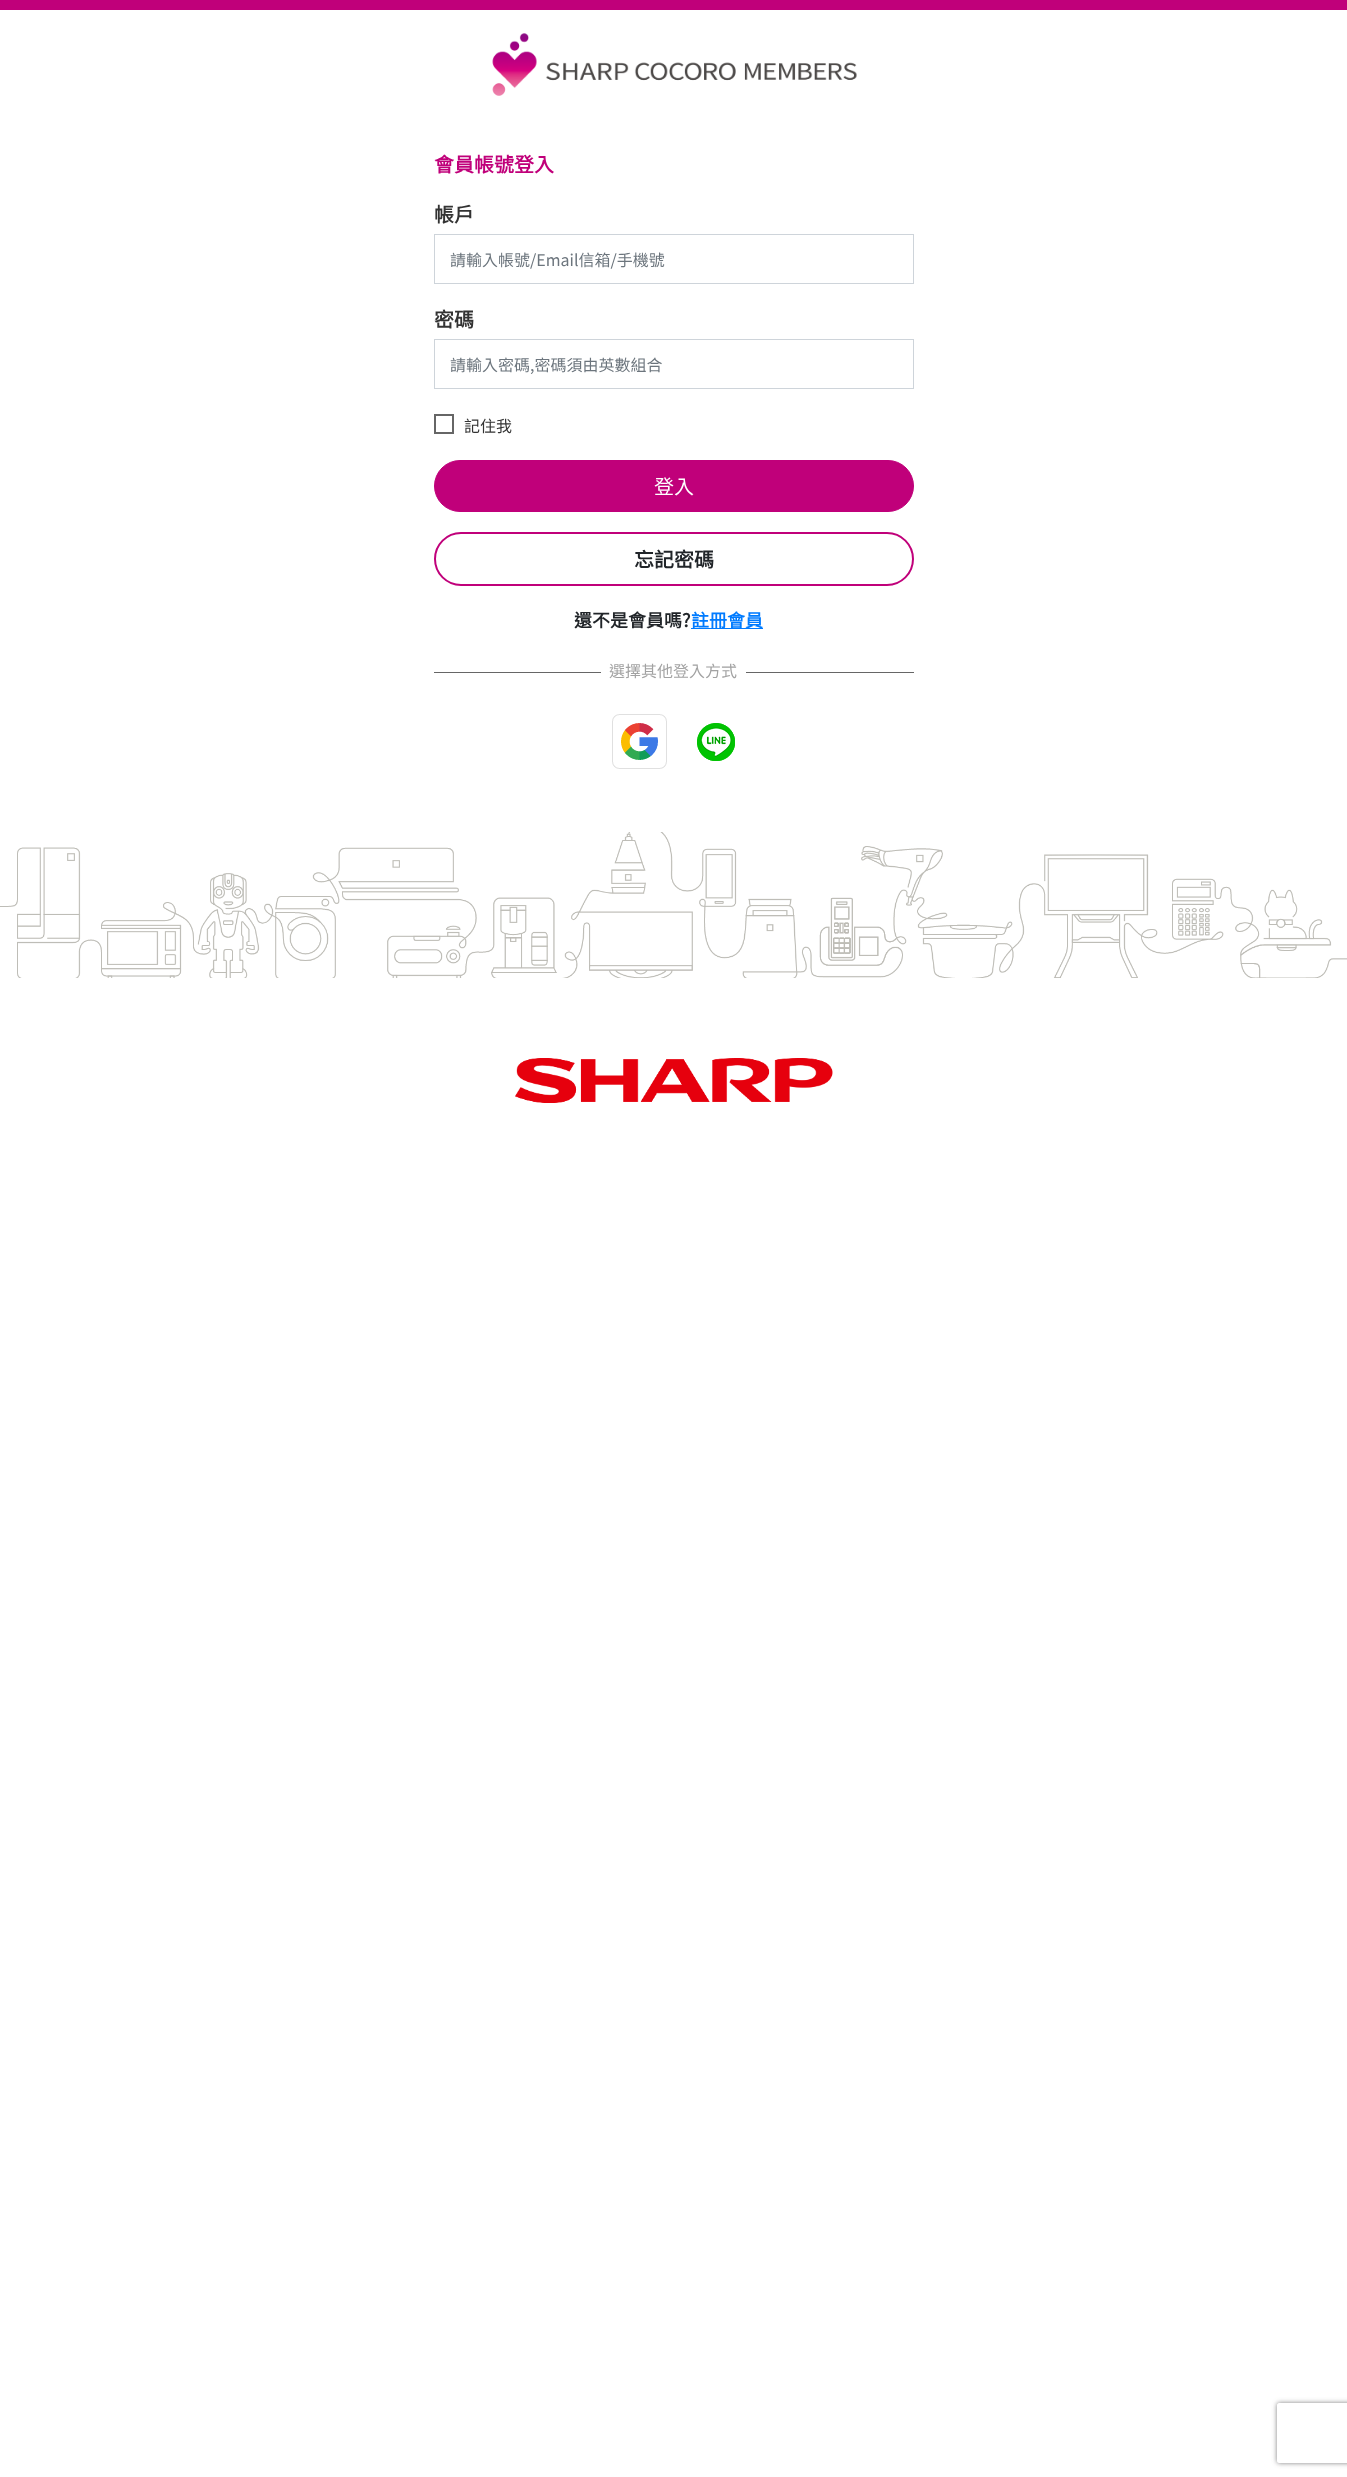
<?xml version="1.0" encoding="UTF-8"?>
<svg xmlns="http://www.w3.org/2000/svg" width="1347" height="2477">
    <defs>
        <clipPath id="clip1"><path d="M 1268 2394 H 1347 V 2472 H 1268 Z M 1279 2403 H 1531 C 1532 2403 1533 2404 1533 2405 V 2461 C 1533 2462 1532 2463 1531 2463 H 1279 C 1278 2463 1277 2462 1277 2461 V 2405 C 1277 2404 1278 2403 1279 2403 Z" clip-rule="evenodd"/></clipPath>
        <filter id="blur1" x="-50%" y="-200%" width="200%" height="500%"><feGaussianBlur stdDeviation="2.5"/></filter>
    </defs>
    <rect width="100%" height="100%" fill="#FFFFFF"/>
    <rect x="0" y="0" width="1347" height="10" fill="#C0007A"/>
    <image x="492" y="33" width="365" height="63" href="img_01.png"/>
    <text x="434" y="172" font-family="Noto Sans TC" font-size="20" font-weight="700" fill="#C0007A">會員帳號登入</text>
    <text x="434" y="222" font-family="Noto Sans TC" font-size="20" font-weight="700" fill="#333333">帳戶</text>
    <rect x="434.5" y="234.5" width="479" height="49" fill="none" stroke="#CED4DA"/>
    <text x="450" y="266" font-family="Noto Sans TC" font-size="16" fill="#6C757D">請輸入帳號/Email信箱/手機號</text>
    <text x="434" y="327" font-family="Noto Sans TC" font-size="20" font-weight="700" fill="#333333">密碼</text>
    <rect x="434.5" y="339.5" width="479" height="49" fill="none" stroke="#CED4DA"/>
    <text x="450" y="371" font-family="Noto Sans TC" font-size="16" fill="#6C757D">請輸入密碼,密碼須由英數組合</text>
    <rect x="435" y="415" width="18" height="18" fill="none" stroke="#666666" stroke-width="2"/>
    <text x="464" y="432" font-family="Noto Sans TC" font-size="16" fill="#333333">記住我</text>
    <rect x="434.5" y="460.5" width="479" height="51" rx="25.5" fill="#C0007A" stroke="#C0007A"/>
    <text x="654" y="494" font-family="Noto Sans TC" font-size="20" fill="#FFFFFF">登入</text>
    <rect x="435" y="533" width="478" height="52" rx="26" fill="none" stroke="#C0007A" stroke-width="2"/>
    <text x="634" y="567" font-family="Noto Sans TC" font-size="20" font-weight="700" fill="#212529">忘記密碼</text>
    <text x="574" y="627" font-family="Noto Sans TC" font-size="18" font-weight="700" fill="#212529">還不是會員嗎?</text>
    <rect x="691" y="628" width="72" height="1" fill="#007BFF"/>
    <text x="691" y="627" font-family="Noto Sans TC" font-size="18" font-weight="700" fill="#007BFF">註冊會員</text>
    <rect x="434" y="672" width="167" height="1" fill="#666666"/>
    <text x="609" y="677" font-family="Noto Sans TC" font-size="16" fill="#A2A2A2">選擇其他登入方式</text>
    <rect x="746" y="672" width="168" height="1" fill="#666666"/>
    <image x="612" y="714" width="55" height="55" href="img_02.png"/>
    <image x="697" y="723" width="38" height="38" href="img_03.png"/>
    <image x="0" y="832" width="1347" height="146" href="img_04.png"/>
    <image x="515" y="1058" width="318" height="45" href="img_05.png"/>
    <g clip-path="url(#clip1)">
        <rect x="1277" y="2403" width="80" height="60" rx="2" fill="#808080" filter="url(#blur1)"/>
    </g>
</svg>
